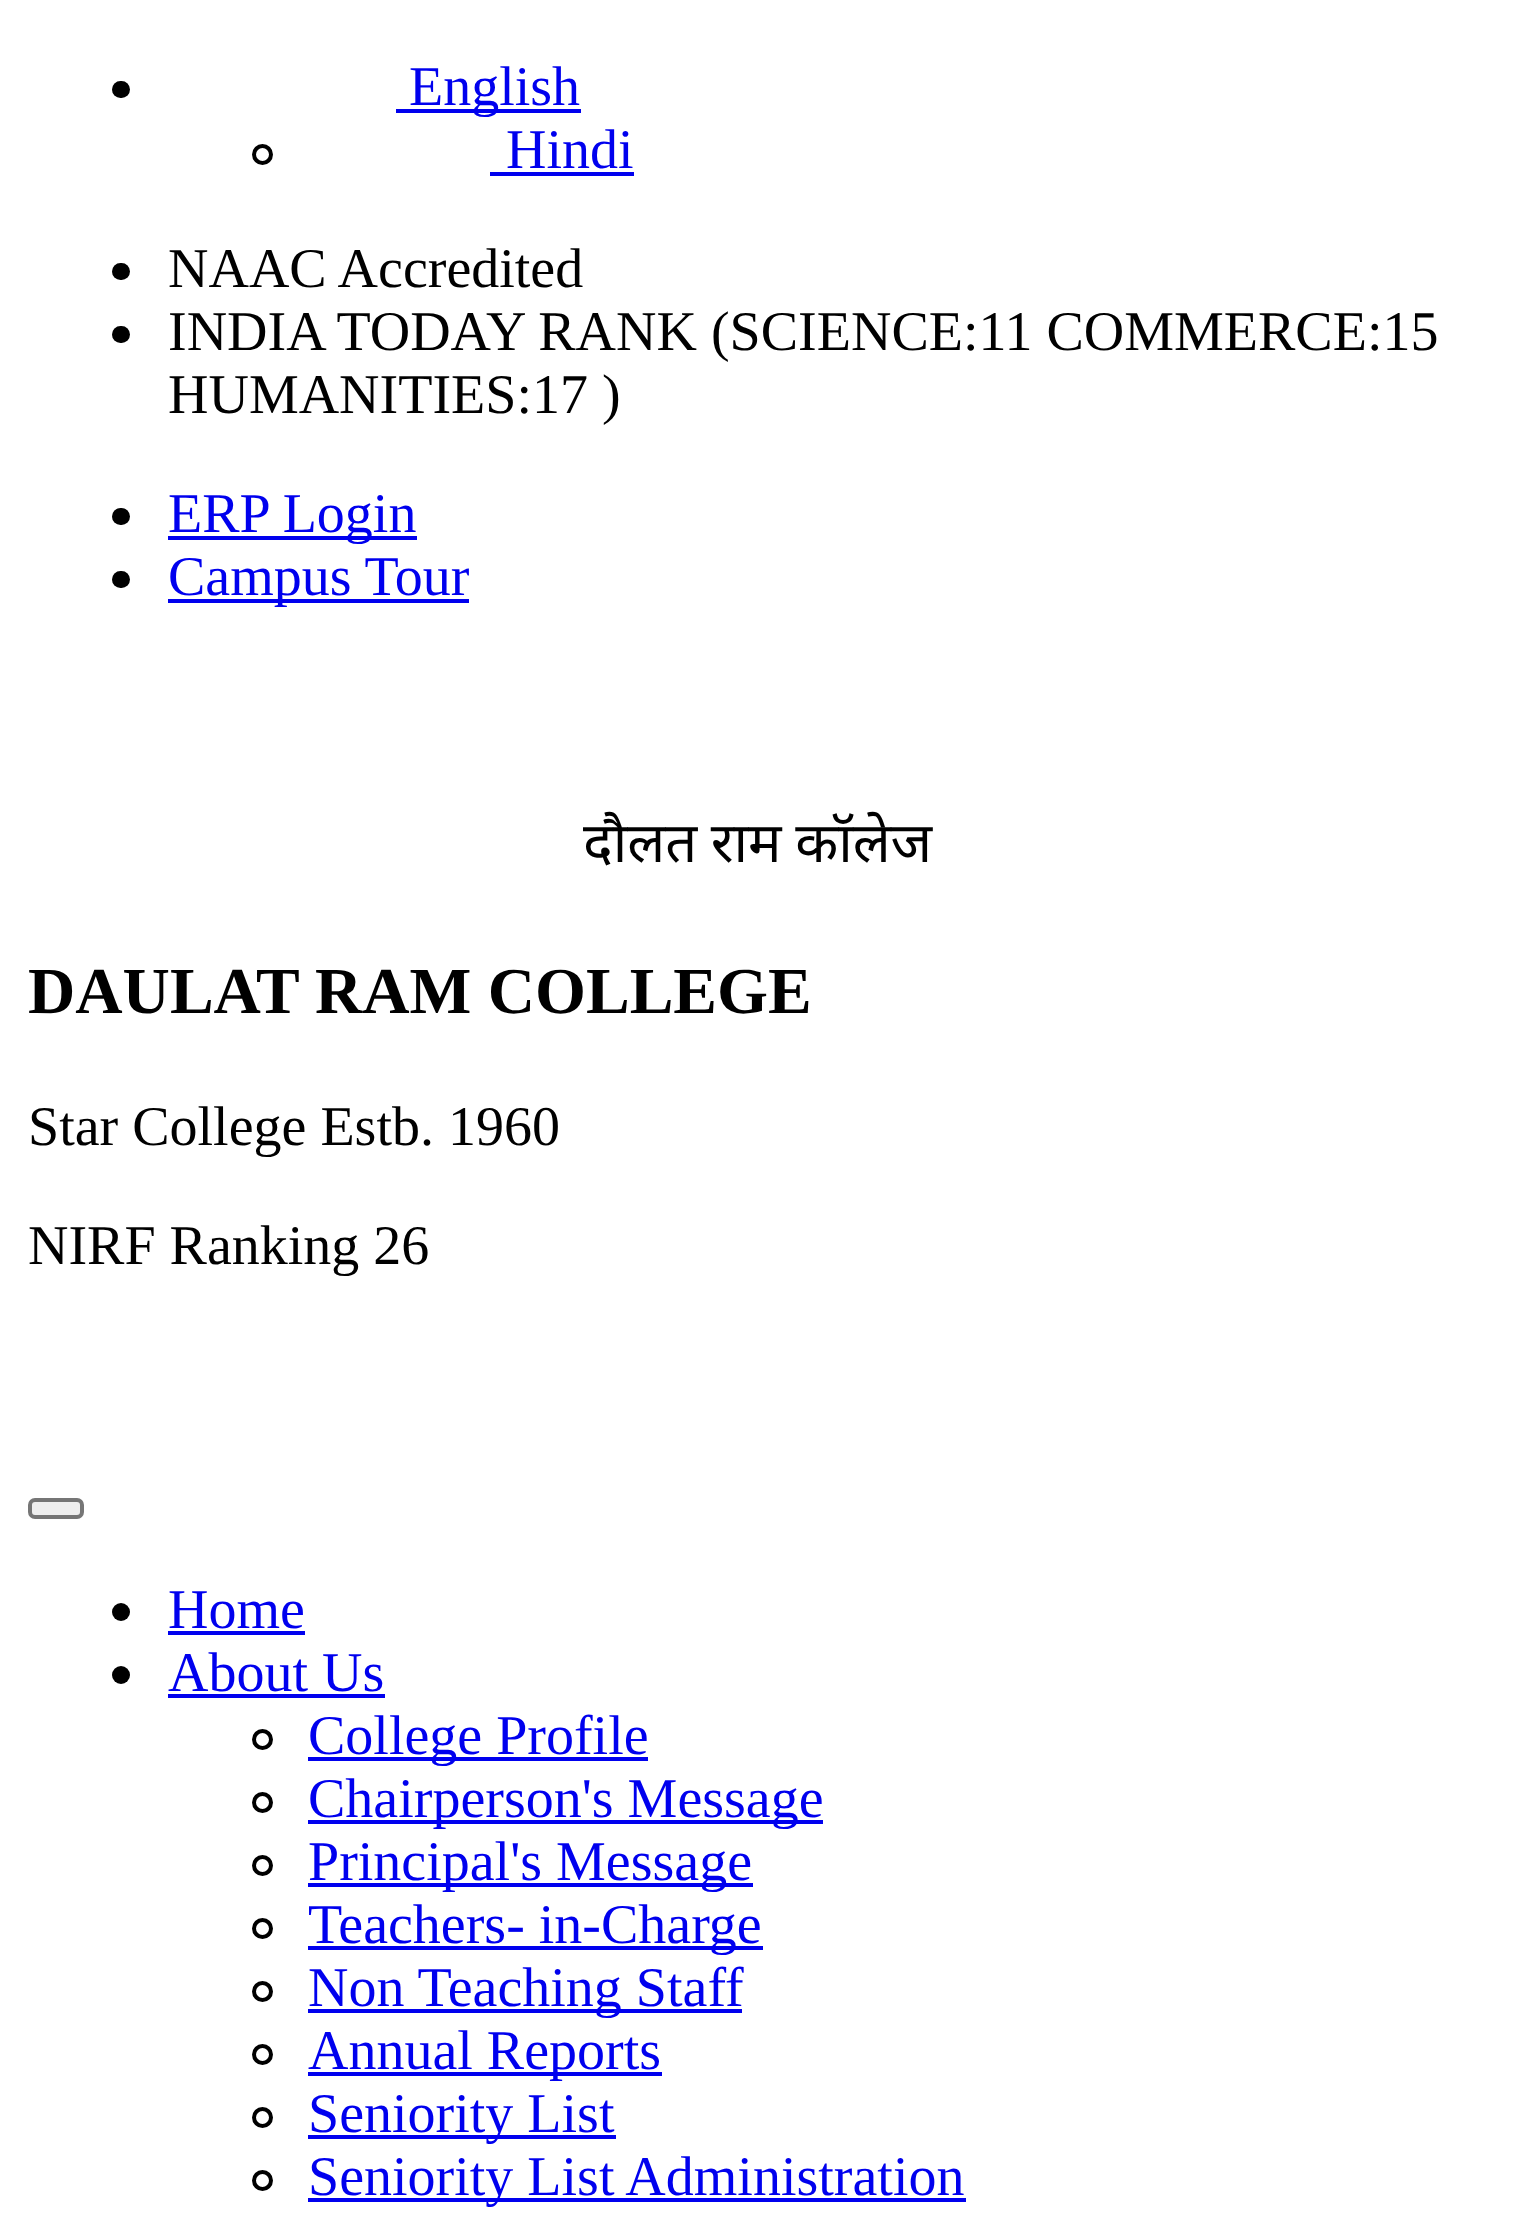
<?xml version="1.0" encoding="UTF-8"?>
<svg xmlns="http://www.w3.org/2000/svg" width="1514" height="2217">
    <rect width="100%" height="100%" fill="#FFFFFF"/>
    <rect x="112" y="81" width="18" height="17" rx="8.5" fill="#000000"/>
    <rect x="396" y="109" width="185" height="4" fill="#0000EE"/>
    <text x="409" y="105" font-family="Liberation Serif" font-size="56" fill="#0000EE">English</text>
    <circle cx="262.5" cy="154.5" r="8.5" fill="none" stroke="#000000" stroke-width="4"/>
    <text x="506" y="168" font-family="Liberation Serif" font-size="56" fill="#0000EE">Hindi</text>
    <rect x="490" y="172" width="144" height="4" fill="#0000EE"/>
    <rect x="112" y="263" width="18" height="17" rx="8.5" fill="#000000"/>
    <text x="168" y="287" font-family="Liberation Serif" font-size="56" fill="#000000">NAAC Accredited</text>
    <rect x="112" y="326" width="18" height="17" rx="8.5" fill="#000000"/>
    <text font-family="Liberation Serif" font-size="56" fill="#000000">
        <tspan x="168" y="350">INDIA TODAY RANK (SCIENCE:11 COMMERCE:15</tspan>
        <tspan x="168" y="413">HUMANITIES:17 )</tspan>
    </text>
    <rect x="112" y="508" width="18" height="17" rx="8.5" fill="#000000"/>
    <rect x="168" y="536" width="249" height="4" fill="#0000EE"/>
    <text x="168" y="532" font-family="Liberation Serif" font-size="56" fill="#0000EE">ERP Login</text>
    <rect x="112" y="571" width="18" height="17" rx="8.5" fill="#000000"/>
    <rect x="168" y="599" width="301" height="4" fill="#0000EE"/>
    <text x="168" y="595" font-family="Liberation Serif" font-size="56" fill="#0000EE">Campus Tour</text>
    <text x="583" y="862" word-spacing="-1" font-family="Noto Sans" font-size="56" fill="#000000">दौलत राम कॉलेज</text>
    <text x="28" y="1013" font-family="Liberation Serif" font-size="65.5" font-weight="700" fill="#000000">DAULAT RAM COLLEGE</text>
    <text x="28" y="1145" font-family="Liberation Serif" font-size="56" fill="#000000">Star College Estb. 1960</text>
    <text x="28" y="1264" font-family="Liberation Serif" font-size="56" fill="#000000">NIRF Ranking 26</text>
    <rect x="30" y="1500" width="52" height="17" rx="5" fill="#EFEFEF" stroke="#767676" stroke-width="4"/>
    <circle cx="121" cy="1612" r="9" fill="#000000"/>
    <text x="168" y="1628" font-family="Liberation Serif" font-size="56" fill="#0000EE">Home</text>
    <rect x="168" y="1631" width="137" height="4" fill="#0000EE"/>
    <circle cx="121" cy="1675" r="9" fill="#000000"/>
    <text x="168" y="1691" font-family="Liberation Serif" font-size="56" fill="#0000EE">About Us</text>
    <rect x="168" y="1694" width="217" height="4" fill="#0000EE"/>
    <circle cx="262.5" cy="1739.5" r="8.5" fill="none" stroke="#000000" stroke-width="4"/>
    <rect x="308" y="1757" width="340" height="4" fill="#0000EE"/>
    <text x="308" y="1754" font-family="Liberation Serif" font-size="56" fill="#0000EE">College Profile</text>
    <circle cx="262.5" cy="1802.5" r="8.5" fill="none" stroke="#000000" stroke-width="4"/>
    <rect x="308" y="1820" width="515" height="4" fill="#0000EE"/>
    <text x="308" y="1817" font-family="Liberation Serif" font-size="56" fill="#0000EE">Chairperson's Message</text>
    <circle cx="262.5" cy="1865.5" r="8.5" fill="none" stroke="#000000" stroke-width="4"/>
    <rect x="308" y="1883" width="445" height="4" fill="#0000EE"/>
    <text x="308" y="1880" font-family="Liberation Serif" font-size="56" fill="#0000EE">Principal's Message</text>
    <circle cx="262.5" cy="1928.5" r="8.5" fill="none" stroke="#000000" stroke-width="4"/>
    <rect x="308" y="1946" width="455" height="4" fill="#0000EE"/>
    <text x="308" y="1943" font-family="Liberation Serif" font-size="56" fill="#0000EE">Teachers- in-Charge</text>
    <circle cx="262.5" cy="1991.5" r="8.5" fill="none" stroke="#000000" stroke-width="4"/>
    <rect x="308" y="2009" width="434" height="4" fill="#0000EE"/>
    <text x="308" y="2006" font-family="Liberation Serif" font-size="56" fill="#0000EE">Non Teaching Staff</text>
    <circle cx="262.5" cy="2054.5" r="8.5" fill="none" stroke="#000000" stroke-width="4"/>
    <rect x="308" y="2072" width="354" height="4" fill="#0000EE"/>
    <text x="308" y="2069" font-family="Liberation Serif" font-size="56" fill="#0000EE">Annual Reports</text>
    <circle cx="262.5" cy="2117.5" r="8.5" fill="none" stroke="#000000" stroke-width="4"/>
    <rect x="308" y="2135" width="308" height="4" fill="#0000EE"/>
    <text x="308" y="2132" font-family="Liberation Serif" font-size="56" fill="#0000EE">Seniority List</text>
    <circle cx="262.5" cy="2180.5" r="8.5" fill="none" stroke="#000000" stroke-width="4"/>
    <rect x="308" y="2198" width="658" height="4" fill="#0000EE"/>
    <text x="308" y="2195" font-family="Liberation Serif" font-size="56" fill="#0000EE">Seniority List Administration</text>
</svg>
